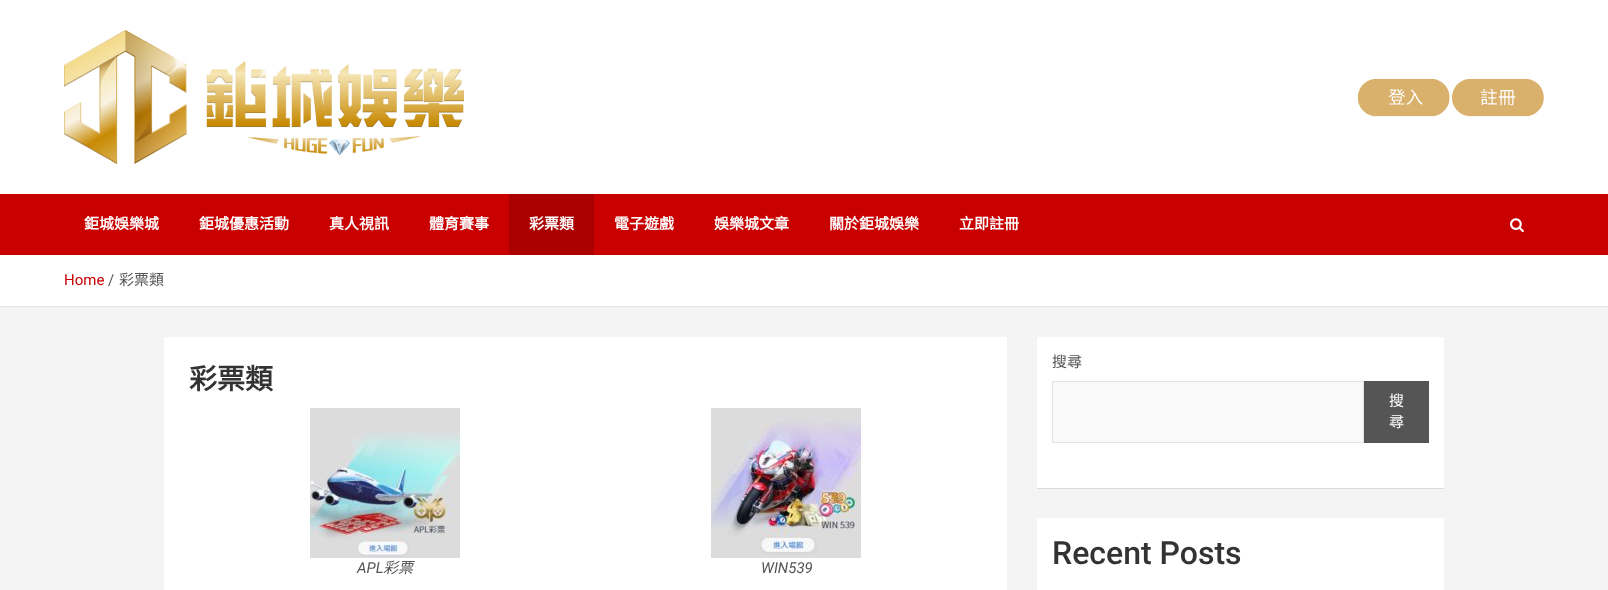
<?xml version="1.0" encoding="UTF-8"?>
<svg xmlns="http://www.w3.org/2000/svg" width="1608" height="590">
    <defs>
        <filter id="blur1" x="-50%" y="-200%" width="200%" height="500%"><feGaussianBlur stdDeviation="0.5"/></filter>
    </defs>
    <rect width="100%" height="100%" fill="#F4F4F4"/>
    <rect x="0" y="0" width="1608" height="194" fill="#FFFFFF"/>
    <image x="64" y="30" width="400" height="134" href="img_01.png"/>
    <image x="1357" y="77" width="187" height="40" href="img_02.png"/>
    <rect x="0" y="194" width="1608" height="61" fill="#C80000"/>
    <text x="84" y="229" font-family="Noto Sans CJK TC" font-size="15" font-weight="700" fill="#FFFFFF">鉅城娛樂城</text>
    <text x="199" y="229" font-family="Noto Sans CJK TC" font-size="15" font-weight="700" fill="#FFFFFF">鉅城優惠活動</text>
    <text x="329" y="229" font-family="Noto Sans CJK TC" font-size="15" font-weight="700" fill="#FFFFFF">真人視訊</text>
    <text x="429" y="229" font-family="Noto Sans CJK TC" font-size="15" font-weight="700" fill="#FFFFFF">體育賽事</text>
    <rect x="509" y="194" width="85" height="61" fill="#AA0000"/>
    <text x="529" y="229" font-family="Noto Sans CJK TC" font-size="15" font-weight="700" fill="#FFFFFF">彩票類</text>
    <text x="614" y="229" font-family="Noto Sans CJK TC" font-size="15" font-weight="700" fill="#FFFFFF">電子遊戲</text>
    <text x="714" y="229" font-family="Noto Sans CJK TC" font-size="15" font-weight="700" fill="#FFFFFF">娛樂城文章</text>
    <text x="829" y="229" font-family="Noto Sans CJK TC" font-size="15" font-weight="700" fill="#FFFFFF">關於鉅城娛樂</text>
    <text x="959" y="229" font-family="Noto Sans CJK TC" font-size="15" font-weight="700" fill="#FFFFFF">立即註冊</text>
    <image x="1510" y="218" width="14" height="15" href="img_03.png"/>
    <rect x="0" y="255" width="1608" height="51" fill="#FFFFFF"/>
    <rect x="0" y="306" width="1608" height="1" fill="#E6E6E6"/>
    <text x="64" y="285" font-family="Roboto" font-size="15" fill="#C80000">Home</text>
    <text x="108" y="285" font-family="Roboto" font-size="15" fill="#555555">/</text>
    <text x="119" y="285" font-family="Noto Sans CJK TC" font-size="15" fill="#555555">彩票類</text>
    <rect x="164" y="337" width="843" height="253" fill="#FFFFFF"/>
    <text x="189" y="389" font-family="Noto Sans CJK TC" font-size="28" font-weight="700" fill="#333333">彩票類</text>
    <image x="310" y="408" width="150" height="150" href="img_04.png"/>
    <text x="357" y="573" font-family="Roboto" font-size="15" font-style="italic" fill="#555555">APL</text>
    <text x="383" y="573" font-family="Noto Sans CJK TC" font-size="15" font-style="italic" fill="#555555">彩票</text>
    <image x="711" y="408" width="150" height="150" href="img_05.png"/>
    <text x="761" y="573" font-family="Roboto" font-size="15" font-style="italic" fill="#555555">WIN539</text>
    <rect x="1037" y="338" width="407" height="151" fill="#000000" fill-opacity="0.1" filter="url(#blur1)"/>
    <rect x="1037" y="337" width="407" height="151" fill="#FFFFFF"/>
    <text x="1052" y="367" font-family="Noto Sans CJK TC" font-size="15" fill="#555555">搜尋</text>
    <rect x="1052.5" y="381.5" width="311" height="61" fill="#F9F9F9" stroke="#E3E3E3"/>
    <rect x="1364" y="381" width="65" height="62" fill="#555555"/>
    <text font-family="Noto Sans CJK TC" font-size="15" fill="#FFFFFF">
        <tspan x="1389" y="406">搜</tspan>
        <tspan x="1389" y="427">尋</tspan>
    </text>
    <rect x="1037" y="518" width="407" height="72" fill="#FFFFFF"/>
    <text x="1052" y="564" font-family="Roboto" font-size="32" font-weight="500" fill="#333333">Recent Posts</text>
</svg>
